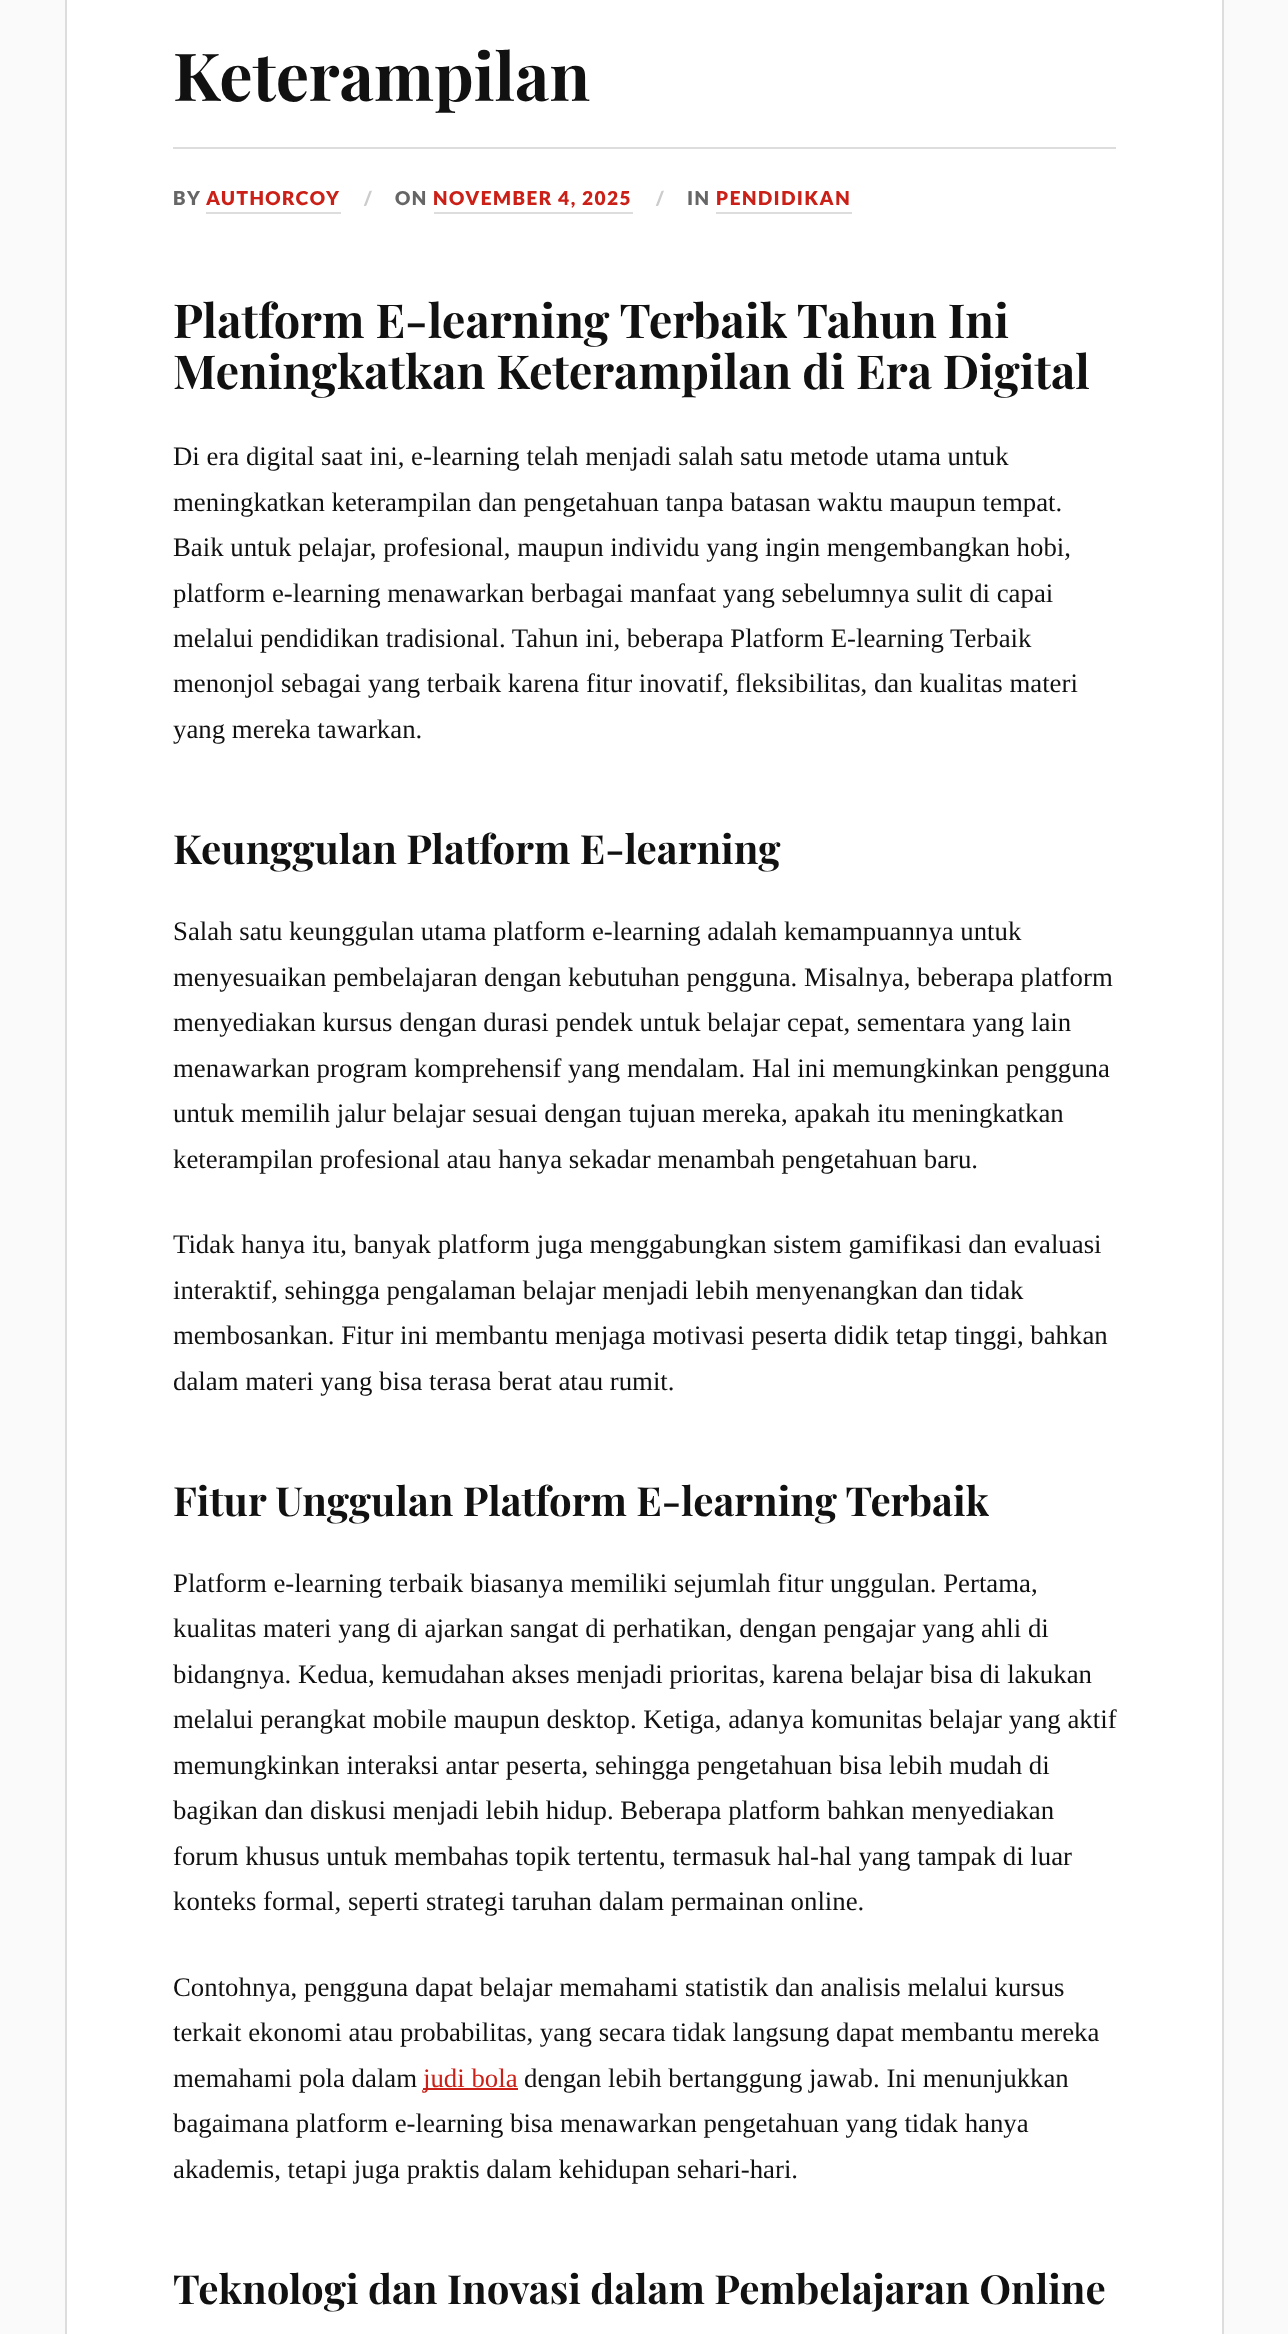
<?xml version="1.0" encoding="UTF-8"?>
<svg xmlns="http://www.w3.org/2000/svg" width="1288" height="2334">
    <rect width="100%" height="100%" fill="#FAFAFA"/>
    <rect x="66" y="-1" width="1157" height="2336" fill="#FFFFFF" stroke="#DDDDDD" stroke-width="2"/>
    <text x="173" y="101" font-family="Playfair Display" font-size="66.25" font-weight="700" fill="#111111">Keterampilan</text>
    <rect x="173" y="147" width="943" height="2" fill="#DDDDDD"/>
    <text x="173" y="205" font-family="Lato" font-size="19.1" font-weight="900" letter-spacing="1.5" fill="#666666">BY</text>
    <text x="206" y="205" font-family="Lato" font-size="19.1" font-weight="900" letter-spacing="1.5" fill="#CA2017">AUTHORCOY</text>
    <rect x="206" y="212" width="135" height="2" fill="#DDDDDD"/>
    <text x="364" y="205" font-family="Lato" font-size="19.1" font-weight="900" letter-spacing="1.5" fill="#CCCCCC">/</text>
    <text x="395" y="205" font-family="Lato" font-size="19.1" font-weight="900" letter-spacing="1.5" fill="#666666">ON</text>
    <text x="433" y="205" font-family="Lato" font-size="19.1" font-weight="900" letter-spacing="1.5" fill="#CA2017">NOVEMBER 4, 2025</text>
    <rect x="434" y="212" width="199" height="2" fill="#DDDDDD"/>
    <text x="656" y="205" font-family="Lato" font-size="19.1" font-weight="900" letter-spacing="1.5" fill="#CCCCCC">/</text>
    <text x="687" y="205" font-family="Lato" font-size="19.1" font-weight="900" letter-spacing="1.5" fill="#666666">IN</text>
    <text x="716" y="205" font-family="Lato" font-size="19.1" font-weight="900" letter-spacing="1.5" fill="#CA2017">PENDIDIKAN</text>
    <rect x="716" y="212" width="136" height="2" fill="#DDDDDD"/>
    <text font-family="Playfair Display" font-size="46.9" font-weight="700" fill="#111111">
        <tspan x="173" y="338">Platform E-learning Terbaik Tahun Ini</tspan>
        <tspan x="173" y="389">Meningkatkan Keterampilan di Era Digital</tspan>
    </text>
    <text font-family="Liberation Serif" font-size="26.8" fill="#111111">
        <tspan x="173" y="465">Di era digital saat ini, e-learning telah menjadi salah satu metode utama untuk</tspan>
        <tspan x="173" y="511">meningkatkan keterampilan dan pengetahuan tanpa batasan waktu maupun tempat.</tspan>
        <tspan x="173" y="556">Baik untuk pelajar, profesional, maupun individu yang ingin mengembangkan hobi,</tspan>
        <tspan x="173" y="602">platform e-learning menawarkan berbagai manfaat yang sebelumnya sulit di capai</tspan>
        <tspan x="173" y="647">melalui pendidikan tradisional. Tahun ini, beberapa Platform E-learning Terbaik</tspan>
        <tspan x="173" y="692">menonjol sebagai yang terbaik karena fitur inovatif, fleksibilitas, dan kualitas materi</tspan>
        <tspan x="173" y="738">yang mereka tawarkan.</tspan>
    </text>
    <text x="173" y="864" font-family="Playfair Display" font-size="40.2" font-weight="700" fill="#111111">Keunggulan Platform E-learning</text>
    <text font-family="Liberation Serif" font-size="26.8" fill="#111111">
        <tspan x="173" y="940">Salah satu keunggulan utama platform e-learning adalah kemampuannya untuk</tspan>
        <tspan x="173" y="986">menyesuaikan pembelajaran dengan kebutuhan pengguna. Misalnya, beberapa platform</tspan>
        <tspan x="173" y="1031">menyediakan kursus dengan durasi pendek untuk belajar cepat, sementara yang lain</tspan>
        <tspan x="173" y="1077">menawarkan program komprehensif yang mendalam. Hal ini memungkinkan pengguna</tspan>
        <tspan x="173" y="1122">untuk memilih jalur belajar sesuai dengan tujuan mereka, apakah itu meningkatkan</tspan>
        <tspan x="173" y="1168">keterampilan profesional atau hanya sekadar menambah pengetahuan baru.</tspan>
    </text>
    <text font-family="Liberation Serif" font-size="26.8" fill="#111111">
        <tspan x="173" y="1253">Tidak hanya itu, banyak platform juga menggabungkan sistem gamifikasi dan evaluasi</tspan>
        <tspan x="173" y="1299">interaktif, sehingga pengalaman belajar menjadi lebih menyenangkan dan tidak</tspan>
        <tspan x="173" y="1344">membosankan. Fitur ini membantu menjaga motivasi peserta didik tetap tinggi, bahkan</tspan>
        <tspan x="173" y="1390">dalam materi yang bisa terasa berat atau rumit.</tspan>
    </text>
    <text x="173" y="1516" font-family="Playfair Display" font-size="40.2" font-weight="700" fill="#111111">Fitur Unggulan Platform E-learning Terbaik</text>
    <text font-family="Liberation Serif" font-size="26.8" fill="#111111">
        <tspan x="173" y="1592">Platform e-learning terbaik biasanya memiliki sejumlah fitur unggulan. Pertama,</tspan>
        <tspan x="173" y="1637">kualitas materi yang di ajarkan sangat di perhatikan, dengan pengajar yang ahli di</tspan>
        <tspan x="173" y="1683">bidangnya. Kedua, kemudahan akses menjadi prioritas, karena belajar bisa di lakukan</tspan>
        <tspan x="173" y="1728">melalui perangkat mobile maupun desktop. Ketiga, adanya komunitas belajar yang aktif</tspan>
        <tspan x="173" y="1774">memungkinkan interaksi antar peserta, sehingga pengetahuan bisa lebih mudah di</tspan>
        <tspan x="173" y="1819">bagikan dan diskusi menjadi lebih hidup. Beberapa platform bahkan menyediakan</tspan>
        <tspan x="173" y="1865">forum khusus untuk membahas topik tertentu, termasuk hal-hal yang tampak di luar</tspan>
        <tspan x="173" y="1910">konteks formal, seperti strategi taruhan dalam permainan online.</tspan>
    </text>
    <text font-family="Liberation Serif" font-size="26.8" fill="#111111">
        <tspan x="173" y="1996">Contohnya, pengguna dapat belajar memahami statistik dan analisis melalui kursus</tspan>
        <tspan x="173" y="2041">terkait ekonomi atau probabilitas, yang secara tidak langsung dapat membantu mereka</tspan>
        <tspan x="173" y="2087">memahami pola dalam</tspan>
    </text>
    <rect x="423" y="2088" width="95" height="2" fill="#CA2017"/>
    <text x="423" y="2087" font-family="Liberation Serif" font-size="26.8" fill="#CA2017">judi bola</text>
    <text x="524" y="2087" font-family="Liberation Serif" font-size="26.8" fill="#111111">dengan lebih bertanggung jawab. Ini menunjukkan</text>
    <text font-family="Liberation Serif" font-size="26.8" fill="#111111">
        <tspan x="173" y="2132">bagaimana platform e-learning bisa menawarkan pengetahuan yang tidak hanya</tspan>
        <tspan x="173" y="2178">akademis, tetapi juga praktis dalam kehidupan sehari-hari.</tspan>
    </text>
    <text x="173" y="2304" font-family="Playfair Display" font-size="40.2" font-weight="700" fill="#111111">Teknologi dan Inovasi dalam Pembelajaran Online</text>
</svg>
